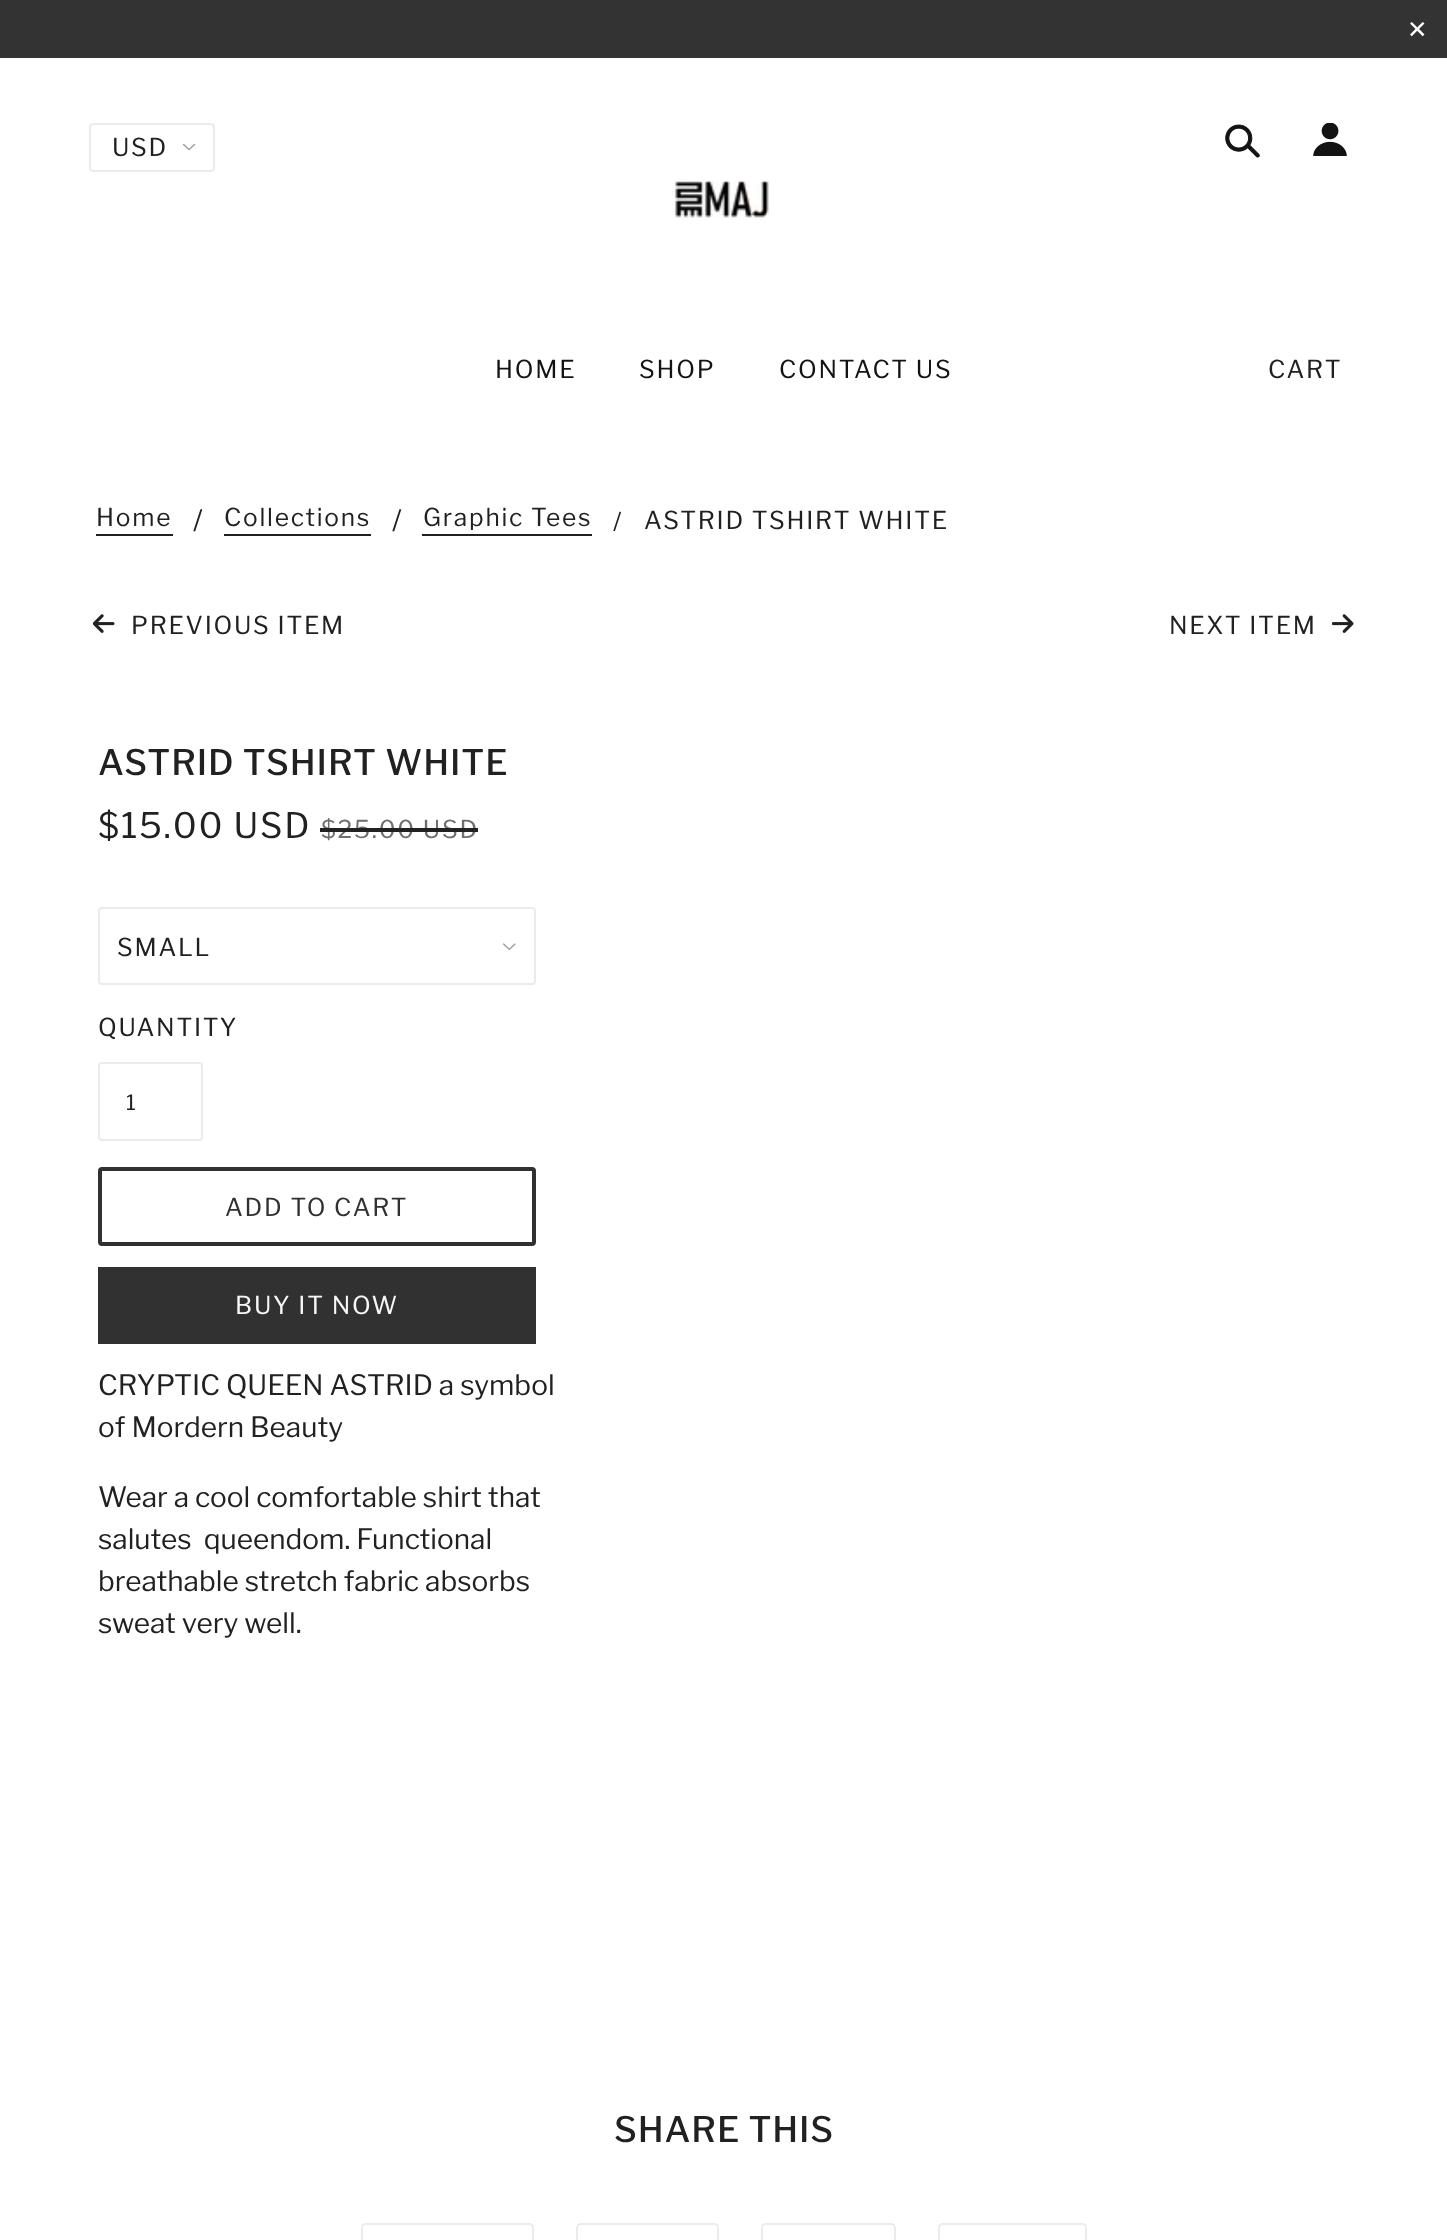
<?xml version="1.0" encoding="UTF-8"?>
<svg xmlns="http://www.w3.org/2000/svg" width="1447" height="2240">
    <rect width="100%" height="100%" fill="#FFFFFF"/>
    <rect x="0" y="0" width="1447" height="58" fill="#333333"/>
    <text x="1407" y="38" font-family="DejaVu Sans" font-size="24.5" letter-spacing="1.75" fill="#FFFFFF">✕</text>
    <image x="182" y="144" width="14" height="7" href="img_01.png"/>
    <rect x="90" y="124" width="124" height="47" rx="3" fill="none" stroke="#EBEBEB" stroke-width="2"/>
    <text x="112" y="156" font-family="Libre Franklin" font-size="24.5" letter-spacing="1.75" fill="#212121">USD</text>
    <image x="1225" y="124" width="35" height="34" href="img_02.png"/>
    <image x="1313" y="123" width="34" height="33" href="img_03.png"/>
    <image x="672" y="180" width="99" height="38" href="img_04.png"/>
    <text x="495" y="378" font-family="Libre Franklin" font-size="24.5" letter-spacing="1.75" fill="#141313">HOME</text>
    <text x="639" y="378" font-family="Libre Franklin" font-size="24.5" letter-spacing="1.75" fill="#141313">SHOP</text>
    <text x="779" y="378" font-family="Libre Franklin" font-size="24.5" letter-spacing="1.75" fill="#141313">CONTACT US</text>
    <text x="1268" y="378" font-family="Libre Franklin" font-size="24.5" letter-spacing="1.75" fill="#212121">CART</text>
    <text x="96" y="526" font-family="Libre Franklin" font-size="24.5" letter-spacing="1.75" fill="#212121">Home</text>
    <rect x="96" y="534" width="77" height="2" fill="#212121"/>
    <text x="193" y="530" font-family="Libre Franklin" font-size="28" fill="#212121">/</text>
    <text x="224" y="526" font-family="Libre Franklin" font-size="24.5" letter-spacing="1.75" fill="#212121">Collections</text>
    <rect x="224" y="534" width="147" height="2" fill="#212121"/>
    <text x="392" y="530" font-family="Libre Franklin" font-size="28" fill="#212121">/</text>
    <text x="423" y="526" font-family="Libre Franklin" font-size="24.5" letter-spacing="1.75" fill="#212121">Graphic Tees</text>
    <rect x="422" y="534" width="170" height="2" fill="#212121"/>
    <text x="613" y="530" font-family="Libre Franklin" font-size="24.5" letter-spacing="1.75" fill="#212121">/</text>
    <text x="644" y="529" font-family="Libre Franklin" font-size="24.5" letter-spacing="1.75" fill="#212121">ASTRID TSHIRT WHITE</text>
    <image x="93" y="614" width="22" height="19" href="img_05.png"/>
    <text x="131" y="634" font-family="Libre Franklin" font-size="24.5" letter-spacing="1.75" fill="#212121">PREVIOUS ITEM</text>
    <text x="1169" y="634" font-family="Libre Franklin" font-size="24.5" letter-spacing="1.75" fill="#212121">NEXT ITEM</text>
    <image x="1332" y="614" width="22" height="19" href="img_06.png"/>
    <text x="98" y="775" font-family="Libre Franklin" font-size="35" font-weight="500" letter-spacing="0.9" fill="#212121">ASTRID TSHIRT WHITE</text>
    <text x="98" y="838" font-family="Libre Franklin" font-size="35" letter-spacing="1.75" fill="#212121">$15.00 USD</text>
    <text x="321" y="838" font-family="Libre Franklin" font-size="24.5" letter-spacing="1.75" fill="#6E6E6E">$25.00 USD</text>
    <rect x="320" y="828" width="158" height="4" fill="#212121"/>
    <image x="503" y="943" width="13" height="7" href="img_07.png"/>
    <rect x="99" y="908" width="436" height="76" rx="3" fill="none" stroke="#EBEBEB" stroke-width="2"/>
    <text x="117" y="956" font-family="Libre Franklin" font-size="24.5" letter-spacing="1.75" fill="#212121">SMALL</text>
    <text x="98" y="1036" font-family="Libre Franklin" font-size="24.5" letter-spacing="1.75" fill="#212121">QUANTITY</text>
    <rect x="99" y="1063" width="103" height="77" rx="3" fill="none" stroke="#EBEBEB" stroke-width="2"/>
    <text x="126" y="1110" font-family="Libre Franklin" font-size="21" letter-spacing="1" fill="#212121">1</text>
    <rect x="100" y="1169" width="434" height="75" rx="2" fill="none" stroke="#313131" stroke-width="4"/>
    <text x="225" y="1216" font-family="Libre Franklin" font-size="24.5" letter-spacing="1.75" fill="#313131">ADD TO CART</text>
    <rect x="98" y="1267" width="438" height="77" fill="#313131"/>
    <text x="235" y="1314" font-family="Libre Franklin" font-size="24.5" letter-spacing="1.75" fill="#F7F7F7">BUY IT NOW</text>
    <text font-family="Libre Franklin" font-size="28" fill="#212121">
        <tspan x="98" y="1395">CRYPTIC QUEEN ASTRID a symbol</tspan>
        <tspan x="98" y="1437">of Mordern Beauty</tspan>
    </text>
    <text font-family="Libre Franklin" font-size="28" fill="#212121" xml:space="preserve"><tspan x="98" y="1507">Wear a cool comfortable shirt that</tspan><tspan x="98" y="1549">salutes  queendom. Functional</tspan><tspan x="98" y="1591">breathable stretch fabric absorbs</tspan><tspan x="98" y="1633">sweat very well.</tspan></text>
    <text x="614" y="2142" font-family="Libre Franklin" font-size="35" font-weight="500" letter-spacing="0.9" fill="#212121">SHARE THIS</text>
    <rect x="362" y="2224" width="171" height="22" rx="4" fill="none" stroke="#EBEBEB" stroke-width="2"/>
    <rect x="577" y="2224" width="141" height="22" rx="4" fill="none" stroke="#EBEBEB" stroke-width="2"/>
    <rect x="762" y="2224" width="133" height="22" rx="4" fill="none" stroke="#EBEBEB" stroke-width="2"/>
    <rect x="939" y="2224" width="147" height="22" rx="4" fill="none" stroke="#EBEBEB" stroke-width="2"/>
</svg>
